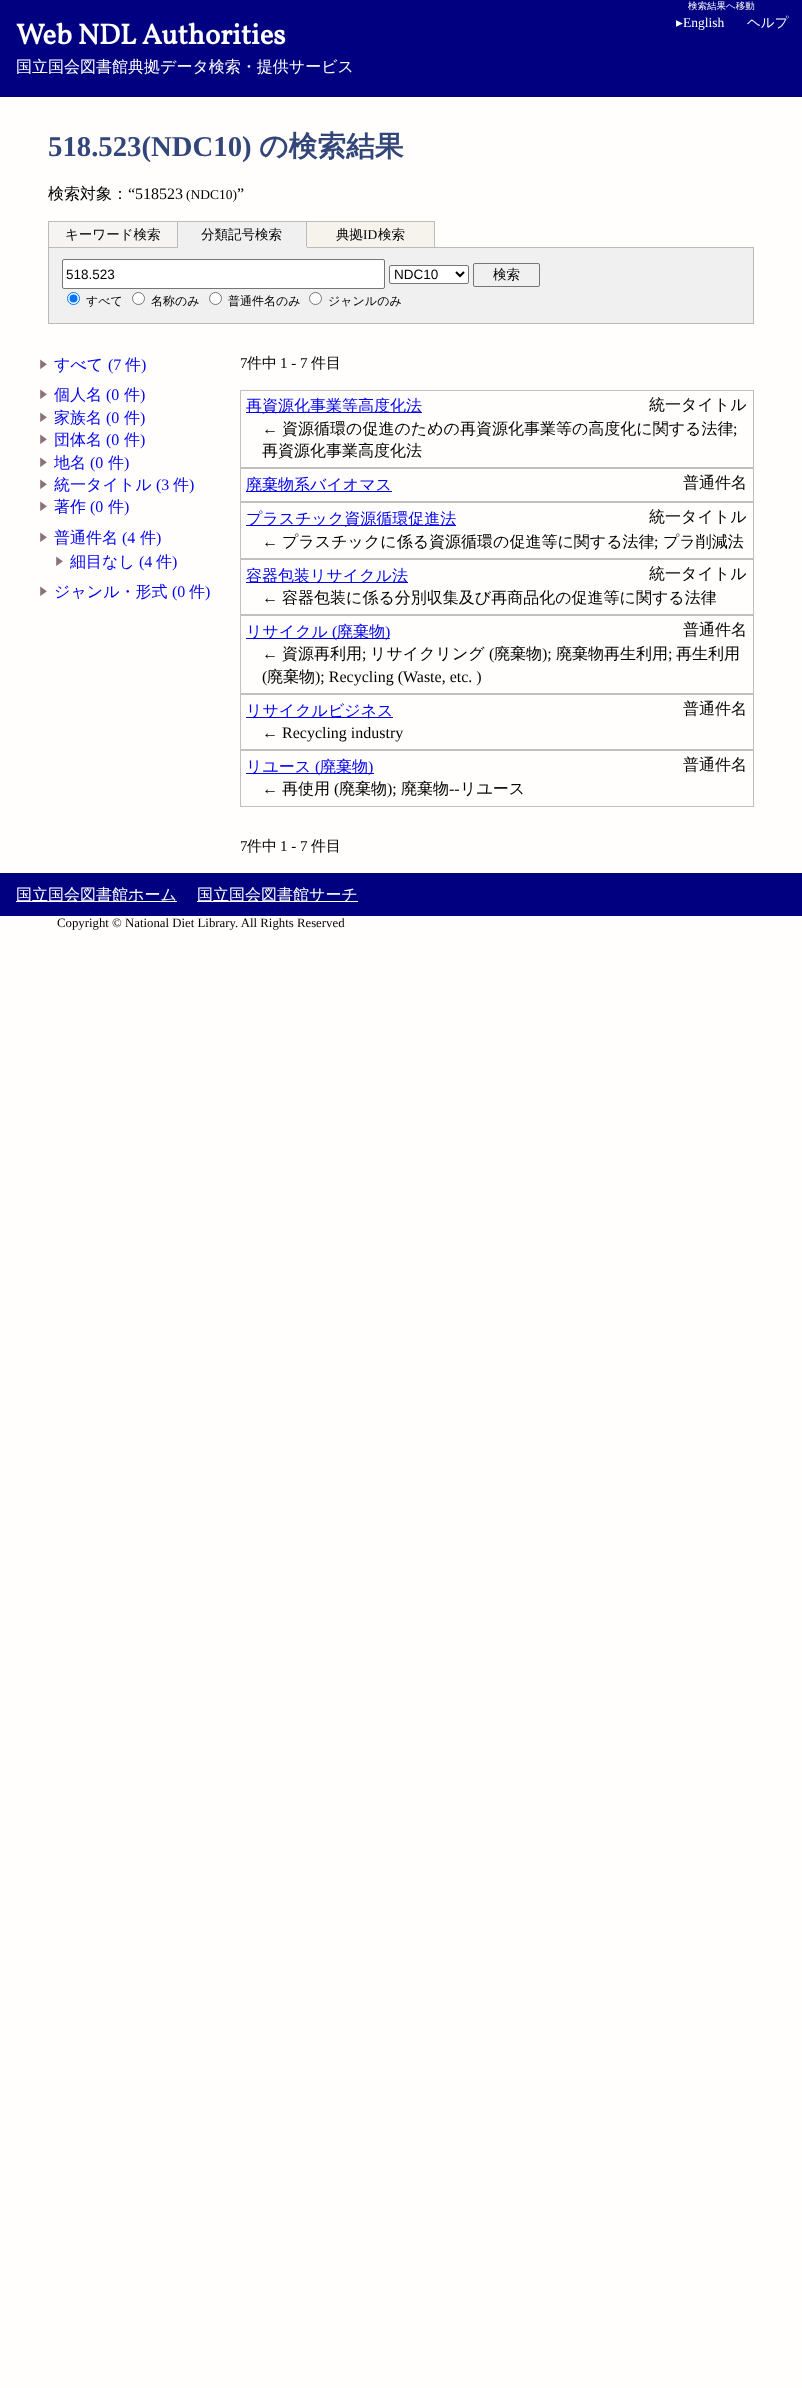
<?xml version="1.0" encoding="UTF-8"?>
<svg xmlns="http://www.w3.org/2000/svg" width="802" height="2388">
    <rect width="100%" height="100%" fill="#FFFEFD"/>
    <rect x="0" y="0" width="802" height="97" fill="#000080"/>
    <text x="688" y="9" font-family="WenQuanYi Zen Hei" font-size="9.5" font-weight="500" fill="#FFFFFF">検索結果へ移動</text>
    <text x="16" y="44" font-family="Vollkorn" font-size="28.75" font-weight="700" fill="#FFFFFF">Web NDL Authorities</text>
    <text x="16" y="72" font-family="WenQuanYi Zen Hei" font-size="16" font-weight="500" fill="#FFFFFF">国立国会図書館典拠データ検索・提供サービス</text>
    <text x="676" y="27" font-family="DejaVu Sans" font-size="13.5" fill="#FFFFFF">▸</text>
    <text x="683" y="27" font-family="Liberation Serif" font-size="13.5" fill="#FFFFFF">English</text>
    <text x="747" y="27" font-family="WenQuanYi Zen Hei" font-size="13.5" font-weight="500" fill="#FFFFFF">ヘルプ</text>
    <text x="48" y="156" font-family="Liberation Serif" font-size="28.75" font-weight="700" fill="#32467A">518.523(NDC10)</text>
    <text x="259" y="156" font-family="WenQuanYi Zen Hei" font-size="28.75" font-weight="700" fill="#32467A">の検索結果</text>
    <text x="48" y="199" font-family="WenQuanYi Zen Hei" font-size="16" font-weight="500" fill="#000000">検索対象：</text>
    <text x="128" y="199" font-family="Liberation Serif" font-size="16" fill="#000000">“518523</text>
    <text x="186" y="199" font-family="Liberation Serif" font-size="13.5" fill="#000000">(NDC10)</text>
    <text x="237" y="199" font-family="Liberation Serif" font-size="16" fill="#000000">”</text>
    <rect x="48.5" y="221.5" width="129" height="26" fill="#F6F4F3" stroke="#BBBBBB"/>
    <text x="65" y="239" font-family="WenQuanYi Zen Hei" font-size="13.5" font-weight="500" fill="#000000">キーワード検索</text>
    <rect x="178" y="222" width="128" height="25" fill="#F0F0F0"/>
    <rect x="178" y="221" width="257" height="1" fill="#BBBBBB"/>
    <rect x="306" y="221" width="1" height="27" fill="#BBBBBB"/>
    <rect x="178" y="247" width="129" height="1" fill="#F0F0F0"/>
    <text x="201" y="239" font-family="WenQuanYi Zen Hei" font-size="13.5" font-weight="500" fill="#000000">分類記号検索</text>
    <rect x="307" y="222" width="127" height="25" fill="#F6F3ED"/>
    <rect x="434" y="221" width="1" height="27" fill="#BBBBBB"/>
    <rect x="307" y="247" width="128" height="1" fill="#BBBBBB"/>
    <text x="336" y="239" font-family="WenQuanYi Zen Hei" font-size="13.5" font-weight="500" fill="#000000">典拠</text>
    <text x="363" y="239" font-family="Liberation Serif" font-size="13.5" fill="#000000">ID</text>
    <text x="378" y="239" font-family="WenQuanYi Zen Hei" font-size="13.5" font-weight="500" fill="#000000">検索</text>
    <rect x="435" y="247" width="319" height="1" fill="#BBBBBB"/>
    <rect x="49" y="248" width="704" height="75" fill="#F0F0F0"/>
    <rect x="753" y="248" width="1" height="76" fill="#BBBBBB"/>
    <rect x="48" y="323" width="706" height="1" fill="#BBBBBB"/>
    <rect x="48" y="248" width="1" height="76" fill="#BBBBBB"/>
    <rect x="62.5" y="259.5" width="322" height="29" rx="1.5" fill="#FFFFFF" stroke="#767676"/>
    <text x="66" y="279" font-family="Liberation Sans" font-size="13.5" fill="#000000">518.523</text>
    <rect x="389.5" y="265.5" width="79" height="18" rx="1.5" fill="#FFFFFF" stroke="#767676"/>
    <path d="M 456 272 L 460 276 L 464 272" fill="none" stroke="#000000" stroke-width="2"/>
    <text x="394" y="279" font-family="Liberation Sans" font-size="13.5" fill="#000000">NDC10</text>
    <rect x="473.5" y="263.5" width="66" height="23" rx="1.5" fill="none" stroke="#767676"/>
    <text x="493" y="279" font-family="WenQuanYi Zen Hei" font-size="13.5" font-weight="500" fill="#000000">検索</text>
    <circle cx="73.5" cy="298.5" r="6" fill="#FFFFFF" stroke="#0075FF"/>
    <circle cx="73.5" cy="298.5" r="4" fill="#0075FF"/>
    <text x="86" y="305" font-family="WenQuanYi Zen Hei" font-size="12" font-weight="500" fill="#000000">すべて</text>
    <circle cx="138.5" cy="298.5" r="6" fill="#FFFFFF" stroke="#767676"/>
    <text x="151" y="305" font-family="WenQuanYi Zen Hei" font-size="12" font-weight="500" fill="#000000">名称のみ</text>
    <circle cx="215.5" cy="298.5" r="6" fill="#FFFFFF" stroke="#767676"/>
    <text x="228" y="305" font-family="WenQuanYi Zen Hei" font-size="12" font-weight="500" fill="#000000">普通件名のみ</text>
    <circle cx="315.5" cy="298.5" r="6" fill="#FFFFFF" stroke="#767676"/>
    <text x="328" y="305" font-family="WenQuanYi Zen Hei" font-size="12" font-weight="500" fill="#000000">ジャンルのみ</text>
    <image x="40" y="359" width="7" height="11" href="img_01.png"/>
    <text x="54" y="370" font-family="WenQuanYi Zen Hei" font-size="16" font-weight="500" fill="#0000EE">すべて</text>
    <text x="108" y="370" font-family="Liberation Serif" font-size="16" fill="#0000EE">(7</text>
    <text x="125" y="370" font-family="WenQuanYi Zen Hei" font-size="16" font-weight="500" fill="#0000EE">件</text>
    <text x="141" y="370" font-family="Liberation Serif" font-size="16" fill="#0000EE">)</text>
    <image x="40" y="389" width="7" height="11" href="img_01.png"/>
    <text x="54" y="400" font-family="WenQuanYi Zen Hei" font-size="16" font-weight="500" fill="#0000EE">個人名</text>
    <text x="106" y="400" font-family="Liberation Serif" font-size="16" fill="#0000EE">(0</text>
    <text x="124" y="400" font-family="WenQuanYi Zen Hei" font-size="16" font-weight="500" fill="#0000EE">件</text>
    <text x="140" y="400" font-family="Liberation Serif" font-size="16" fill="#0000EE">)</text>
    <image x="40" y="412" width="7" height="11" href="img_01.png"/>
    <text x="54" y="423" font-family="WenQuanYi Zen Hei" font-size="16" font-weight="500" fill="#0000EE">家族名</text>
    <text x="106" y="423" font-family="Liberation Serif" font-size="16" fill="#0000EE">(0</text>
    <text x="124" y="423" font-family="WenQuanYi Zen Hei" font-size="16" font-weight="500" fill="#0000EE">件</text>
    <text x="140" y="423" font-family="Liberation Serif" font-size="16" fill="#0000EE">)</text>
    <image x="40" y="434" width="7" height="11" href="img_01.png"/>
    <text x="54" y="445" font-family="WenQuanYi Zen Hei" font-size="16" font-weight="500" fill="#0000EE">団体名</text>
    <text x="106" y="445" font-family="Liberation Serif" font-size="16" fill="#0000EE">(0</text>
    <text x="124" y="445" font-family="WenQuanYi Zen Hei" font-size="16" font-weight="500" fill="#0000EE">件</text>
    <text x="140" y="445" font-family="Liberation Serif" font-size="16" fill="#0000EE">)</text>
    <image x="40" y="457" width="7" height="11" href="img_01.png"/>
    <text x="54" y="468" font-family="WenQuanYi Zen Hei" font-size="16" font-weight="500" fill="#0000EE">地名</text>
    <text x="90" y="468" font-family="Liberation Serif" font-size="16" fill="#0000EE">(0</text>
    <text x="108" y="468" font-family="WenQuanYi Zen Hei" font-size="16" font-weight="500" fill="#0000EE">件</text>
    <text x="124" y="468" font-family="Liberation Serif" font-size="16" fill="#0000EE">)</text>
    <image x="40" y="479" width="7" height="11" href="img_01.png"/>
    <text x="54" y="490" font-family="WenQuanYi Zen Hei" font-size="16" font-weight="500" fill="#0000EE">統一タイトル</text>
    <text x="156" y="490" font-family="Liberation Serif" font-size="16" fill="#0000EE">(3</text>
    <text x="173" y="490" font-family="WenQuanYi Zen Hei" font-size="16" font-weight="500" fill="#0000EE">件</text>
    <text x="189" y="490" font-family="Liberation Serif" font-size="16" fill="#0000EE">)</text>
    <image x="40" y="501" width="7" height="11" href="img_01.png"/>
    <text x="54" y="512" font-family="WenQuanYi Zen Hei" font-size="16" font-weight="500" fill="#0000EE">著作</text>
    <text x="90" y="512" font-family="Liberation Serif" font-size="16" fill="#0000EE">(0</text>
    <text x="108" y="512" font-family="WenQuanYi Zen Hei" font-size="16" font-weight="500" fill="#0000EE">件</text>
    <text x="124" y="512" font-family="Liberation Serif" font-size="16" fill="#0000EE">)</text>
    <image x="40" y="532" width="7" height="11" href="img_01.png"/>
    <text x="54" y="543" font-family="WenQuanYi Zen Hei" font-size="16" font-weight="500" fill="#0000EE">普通件名</text>
    <text x="122" y="543" font-family="Liberation Serif" font-size="16" fill="#0000EE">(4</text>
    <text x="140" y="543" font-family="WenQuanYi Zen Hei" font-size="16" font-weight="500" fill="#0000EE">件</text>
    <text x="156" y="543" font-family="Liberation Serif" font-size="16" fill="#0000EE">)</text>
    <image x="56" y="556" width="7" height="11" href="img_01.png"/>
    <text x="70" y="567" font-family="WenQuanYi Zen Hei" font-size="16" font-weight="500" fill="#0000EE">細目なし</text>
    <text x="139" y="567" font-family="Liberation Serif" font-size="16" fill="#0000EE">(4</text>
    <text x="156" y="567" font-family="WenQuanYi Zen Hei" font-size="16" font-weight="500" fill="#0000EE">件</text>
    <text x="172" y="567" font-family="Liberation Serif" font-size="16" fill="#0000EE">)</text>
    <image x="40" y="586" width="7" height="11" href="img_01.png"/>
    <text x="54" y="597" font-family="WenQuanYi Zen Hei" font-size="16" font-weight="500" fill="#0000EE">ジャンル・形式</text>
    <text x="172" y="597" font-family="Liberation Serif" font-size="16" fill="#0000EE">(0</text>
    <text x="189" y="597" font-family="WenQuanYi Zen Hei" font-size="16" font-weight="500" fill="#0000EE">件</text>
    <text x="205" y="597" font-family="Liberation Serif" font-size="16" fill="#0000EE">)</text>
    <text x="240" y="368" font-family="Liberation Serif" font-size="15" fill="#000000">7</text>
    <text x="247" y="368" font-family="WenQuanYi Zen Hei" font-size="15" font-weight="500" fill="#000000">件中</text>
    <text x="280" y="368" font-family="Liberation Serif" font-size="15" fill="#000000">1 - 7</text>
    <text x="311" y="368" font-family="WenQuanYi Zen Hei" font-size="15" font-weight="500" fill="#000000">件目</text>
    <rect x="240.5" y="390.5" width="513" height="77" fill="none" stroke="#C0C0C0"/>
    <rect x="246" y="412" width="176" height="1" fill="#0000EE"/>
    <text x="246" y="411" font-family="WenQuanYi Zen Hei" font-size="16" font-weight="500" fill="#0000EE">再資源化事業等高度化法</text>
    <text x="649" y="410" font-family="WenQuanYi Zen Hei" font-size="16" font-weight="500" fill="#000000">統一タイトル</text>
    <text x="262" y="434" font-family="Liberation Serif" font-size="16" fill="#000000">←</text>
    <text x="282" y="434" font-family="WenQuanYi Zen Hei" font-size="16" font-weight="500" fill="#000000">資源循環の促進のための再資源化事業等の高度化に関する法律</text>
    <text x="733" y="434" font-family="Liberation Serif" font-size="16" fill="#000000">;</text>
    <text x="262" y="456" font-family="WenQuanYi Zen Hei" font-size="16" font-weight="500" fill="#000000">再資源化事業高度化法</text>
    <rect x="240.5" y="468.5" width="513" height="33" fill="none" stroke="#C0C0C0"/>
    <rect x="246" y="491" width="146" height="1" fill="#0000EE"/>
    <text x="246" y="490" font-family="WenQuanYi Zen Hei" font-size="16" font-weight="500" fill="#0000EE">廃棄物系バイオマス</text>
    <text x="683" y="488" font-family="WenQuanYi Zen Hei" font-size="16" font-weight="500" fill="#000000">普通件名</text>
    <rect x="240.5" y="502.5" width="513" height="56" fill="none" stroke="#C0C0C0"/>
    <rect x="246" y="525" width="210" height="1" fill="#0000EE"/>
    <text x="246" y="524" font-family="WenQuanYi Zen Hei" font-size="16" font-weight="500" fill="#0000EE">プラスチック資源循環促進法</text>
    <text x="649" y="522" font-family="WenQuanYi Zen Hei" font-size="16" font-weight="500" fill="#000000">統一タイトル</text>
    <text x="262" y="547" font-family="Liberation Serif" font-size="16" fill="#000000">←</text>
    <text x="282" y="547" font-family="WenQuanYi Zen Hei" font-size="16" font-weight="500" fill="#000000">プラスチックに係る資源循環の促進等に関する法律</text>
    <text x="654" y="547" font-family="Liberation Serif" font-size="16" fill="#000000">;</text>
    <text x="663" y="547" font-family="WenQuanYi Zen Hei" font-size="16" font-weight="500" fill="#000000">プラ削減法</text>
    <rect x="240.5" y="559.5" width="513" height="55" fill="none" stroke="#C0C0C0"/>
    <rect x="246" y="582" width="162" height="1" fill="#0000EE"/>
    <text x="246" y="581" font-family="WenQuanYi Zen Hei" font-size="16" font-weight="500" fill="#0000EE">容器包装リサイクル法</text>
    <text x="649" y="579" font-family="WenQuanYi Zen Hei" font-size="16" font-weight="500" fill="#000000">統一タイトル</text>
    <text x="262" y="603" font-family="Liberation Serif" font-size="16" fill="#000000">←</text>
    <text x="282" y="603" font-family="WenQuanYi Zen Hei" font-size="16" font-weight="500" fill="#000000">容器包装に係る分別収集及び再商品化の促進等に関する法律</text>
    <rect x="240.5" y="615.5" width="513" height="78" fill="none" stroke="#C0C0C0"/>
    <rect x="246" y="638" width="144" height="1" fill="#0000EE"/>
    <text x="246" y="637" font-family="WenQuanYi Zen Hei" font-size="16" font-weight="500" fill="#0000EE">リサイクル</text>
    <text x="332" y="637" font-family="Liberation Serif" font-size="16" fill="#0000EE">(</text>
    <text x="337" y="637" font-family="WenQuanYi Zen Hei" font-size="16" font-weight="500" fill="#0000EE">廃棄物</text>
    <text x="385" y="637" font-family="Liberation Serif" font-size="16" fill="#0000EE">)</text>
    <text x="683" y="635" font-family="WenQuanYi Zen Hei" font-size="16" font-weight="500" fill="#000000">普通件名</text>
    <text x="262" y="659" font-family="Liberation Serif" font-size="16" fill="#000000">←</text>
    <text x="282" y="659" font-family="WenQuanYi Zen Hei" font-size="16" font-weight="500" fill="#000000">資源再利用</text>
    <text x="362" y="659" font-family="Liberation Serif" font-size="16" fill="#000000">;</text>
    <text x="370" y="659" font-family="WenQuanYi Zen Hei" font-size="16" font-weight="500" fill="#000000">リサイクリング</text>
    <text x="489" y="659" font-family="Liberation Serif" font-size="16" fill="#000000">(</text>
    <text x="494" y="659" font-family="WenQuanYi Zen Hei" font-size="16" font-weight="500" fill="#000000">廃棄物</text>
    <text x="542" y="659" font-family="Liberation Serif" font-size="16" fill="#000000">);</text>
    <text x="556" y="659" font-family="WenQuanYi Zen Hei" font-size="16" font-weight="500" fill="#000000">廃棄物再生利用</text>
    <text x="668" y="659" font-family="Liberation Serif" font-size="16" fill="#000000">;</text>
    <text x="676" y="659" font-family="WenQuanYi Zen Hei" font-size="16" font-weight="500" fill="#000000">再生利用</text>
    <text x="262" y="682" font-family="Liberation Serif" font-size="16" fill="#000000">(</text>
    <text x="267" y="682" font-family="WenQuanYi Zen Hei" font-size="16" font-weight="500" fill="#000000">廃棄物</text>
    <text x="315" y="682" font-family="Liberation Serif" font-size="16" fill="#000000">); Recycling (Waste, etc. )</text>
    <rect x="240.5" y="694.5" width="513" height="55" fill="none" stroke="#C0C0C0"/>
    <rect x="246" y="717" width="147" height="1" fill="#0000EE"/>
    <text x="246" y="716" font-family="WenQuanYi Zen Hei" font-size="16" font-weight="500" fill="#0000EE">リサイクルビジネス</text>
    <text x="683" y="714" font-family="WenQuanYi Zen Hei" font-size="16" font-weight="500" fill="#000000">普通件名</text>
    <text x="262" y="738" font-family="Liberation Serif" font-size="16" fill="#000000">← Recycling industry</text>
    <rect x="240.5" y="750.5" width="513" height="56" fill="none" stroke="#C0C0C0"/>
    <rect x="246" y="773" width="128" height="1" fill="#0000EE"/>
    <text x="246" y="772" font-family="WenQuanYi Zen Hei" font-size="16" font-weight="500" fill="#0000EE">リユース</text>
    <text x="315" y="772" font-family="Liberation Serif" font-size="16" fill="#0000EE">(</text>
    <text x="320" y="772" font-family="WenQuanYi Zen Hei" font-size="16" font-weight="500" fill="#0000EE">廃棄物</text>
    <text x="368" y="772" font-family="Liberation Serif" font-size="16" fill="#0000EE">)</text>
    <text x="683" y="770" font-family="WenQuanYi Zen Hei" font-size="16" font-weight="500" fill="#000000">普通件名</text>
    <text x="262" y="794" font-family="Liberation Serif" font-size="16" fill="#000000">←</text>
    <text x="282" y="794" font-family="WenQuanYi Zen Hei" font-size="16" font-weight="500" fill="#000000">再使用</text>
    <text x="334" y="794" font-family="Liberation Serif" font-size="16" fill="#000000">(</text>
    <text x="339" y="794" font-family="WenQuanYi Zen Hei" font-size="16" font-weight="500" fill="#000000">廃棄物</text>
    <text x="387" y="794" font-family="Liberation Serif" font-size="16" fill="#000000">);</text>
    <text x="401" y="794" font-family="WenQuanYi Zen Hei" font-size="16" font-weight="500" fill="#000000">廃棄物</text>
    <text x="449" y="794" font-family="Liberation Serif" font-size="16" fill="#000000">--</text>
    <text x="460" y="794" font-family="WenQuanYi Zen Hei" font-size="16" font-weight="500" fill="#000000">リユース</text>
    <text x="240" y="851" font-family="Liberation Serif" font-size="15" fill="#000000">7</text>
    <text x="247" y="851" font-family="WenQuanYi Zen Hei" font-size="15" font-weight="500" fill="#000000">件中</text>
    <text x="280" y="851" font-family="Liberation Serif" font-size="15" fill="#000000">1 - 7</text>
    <text x="311" y="851" font-family="WenQuanYi Zen Hei" font-size="15" font-weight="500" fill="#000000">件目</text>
    <rect x="0" y="873" width="802" height="43" fill="#000080"/>
    <rect x="16" y="901" width="161" height="1" fill="#FFFFFF"/>
    <text x="16" y="900" font-family="WenQuanYi Zen Hei" font-size="16" font-weight="500" fill="#FFFFFF">国立国会図書館ホーム</text>
    <rect x="197" y="901" width="161" height="1" fill="#FFFFFF"/>
    <text x="197" y="900" font-family="WenQuanYi Zen Hei" font-size="16" font-weight="500" fill="#FFFFFF">国立国会図書館サーチ</text>
    <text x="57" y="927" font-family="Liberation Serif" font-size="12.8" fill="#000000">Copyright © National Diet Library. All Rights Reserved</text>
</svg>
